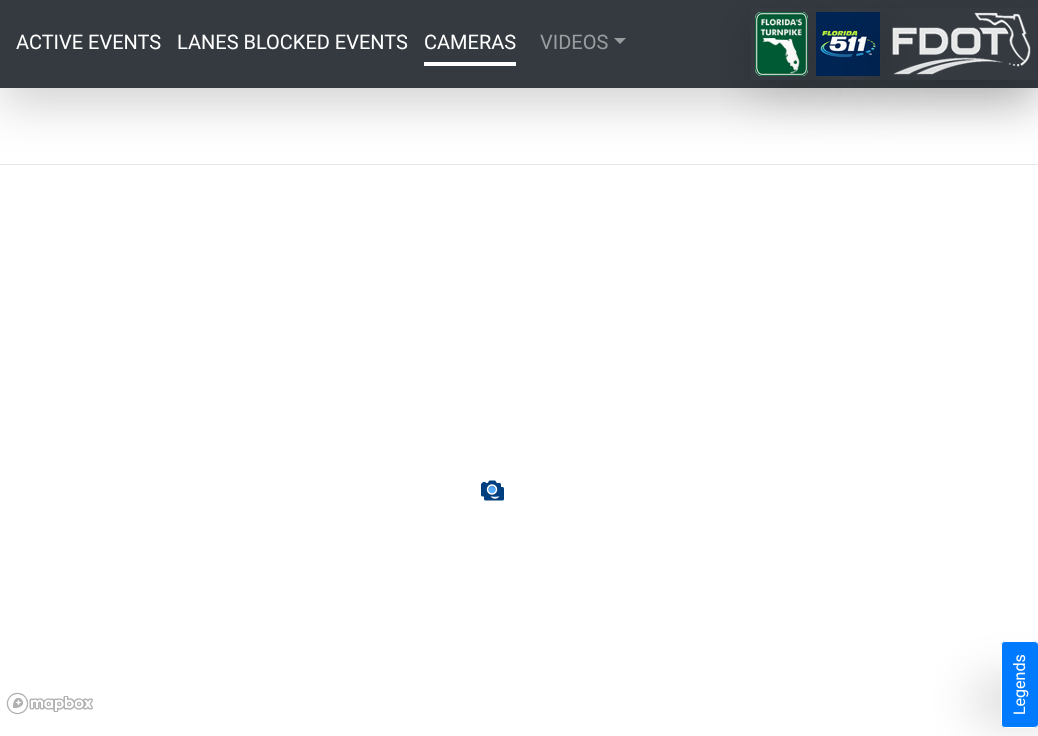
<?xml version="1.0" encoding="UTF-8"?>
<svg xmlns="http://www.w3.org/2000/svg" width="1038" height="736">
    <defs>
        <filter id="blur1" x="-50%" y="-200%" width="200%" height="500%"><feGaussianBlur stdDeviation="24"/></filter>
        <clipPath id="clip1"><path d="M 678 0 H 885 V 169 H 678 Z M 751 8 H 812 V 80 H 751 Z" clip-rule="evenodd"/></clipPath>
        <clipPath id="clip2"><path d="M 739 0 H 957 V 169 H 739 Z M 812 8 H 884 V 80 H 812 Z" clip-rule="evenodd"/></clipPath>
        <clipPath id="clip3"><path d="M 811 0 H 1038 V 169 H 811 Z M 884 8 H 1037 V 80 H 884 Z" clip-rule="evenodd"/></clipPath>
    </defs>
    <rect width="100%" height="100%" fill="#FFFFFF"/>
    <rect x="0" y="164" width="1038" height="1" fill="#E6E6E6"/>
    <rect x="0" y="16" width="1038" height="88" fill="#000000" fill-opacity="0.18" filter="url(#blur1)"/>
    <rect x="0" y="0" width="1038" height="88" fill="#343A40"/>
    <text x="16" y="49" font-family="Roboto" font-size="20" fill="#FFFFFF">ACTIVE EVENTS</text>
    <text x="177" y="49" font-family="Roboto" font-size="20" fill="#FFFFFF">LANES BLOCKED EVENTS</text>
    <rect x="424" y="62" width="92" height="4" fill="#FFFFFF"/>
    <text x="424" y="49" font-family="Roboto" font-size="20" fill="#FFFFFF">CAMERAS</text>
    <text x="540" y="49" font-family="Roboto" font-size="20" fill="#9A9DA0">VIDEOS</text>
    <path d="M 614 38 H 626 L 620 44 Z" fill="#9A9DA0"/>
    <g clip-path="url(#clip1)">
        <rect x="751" y="24" width="61" height="72" fill="#000000" fill-opacity="0.18" filter="url(#blur1)"/>
    </g>
    <image x="755" y="12" width="53" height="64" href="img_01.png"/>
    <g clip-path="url(#clip2)">
        <rect x="812" y="24" width="72" height="72" fill="#000000" fill-opacity="0.18" filter="url(#blur1)"/>
    </g>
    <image x="816" y="12" width="64" height="64" href="img_02.png"/>
    <g clip-path="url(#clip3)">
        <rect x="884" y="24" width="153" height="72" fill="#000000" fill-opacity="0.18" filter="url(#blur1)"/>
    </g>
    <image x="892" y="12" width="139" height="63" href="img_03.png"/>
    <image x="484" y="487" width="20" height="14" href="img_05.png"/>
    <image x="481" y="480" width="20" height="17" href="img_04.png"/>
    <image x="6" y="692" width="87" height="23" href="img_06.png"/>
    <rect x="976" y="682" width="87" height="37" rx="4" fill="#000000" fill-opacity="0.18" filter="url(#blur1)"/>
    <path d="M 1001 724 V 645 C 1001 643 1003 641 1005 641 H 1034 C 1036 641 1038 643 1038 645 V 724 C 1038 726 1036 728 1034 728 H 1005 C 1003 728 1001 726 1001 724 Z" fill="#007BFF"/>
    <path d="M 1001 724 V 645 C 1001 643 1003 641 1005 641 H 1034 C 1036 641 1038 643 1038 645 V 724 C 1038 726 1036 728 1034 728 H 1005 C 1003 728 1001 726 1001 724 Z M 1002 724 V 645 C 1002 643 1003 642 1005 642 H 1034 C 1036 642 1038 643 1038 645 V 724 C 1038 726 1036 727 1034 727 H 1005 C 1003 727 1002 726 1002 724 Z" fill="#FFFFFF" fill-rule="evenodd"/>
    <text x="1025" y="715" transform="rotate(-90 1025 715)" font-family="Roboto" font-size="16" fill="#FFFFFF">Legends</text>
</svg>
